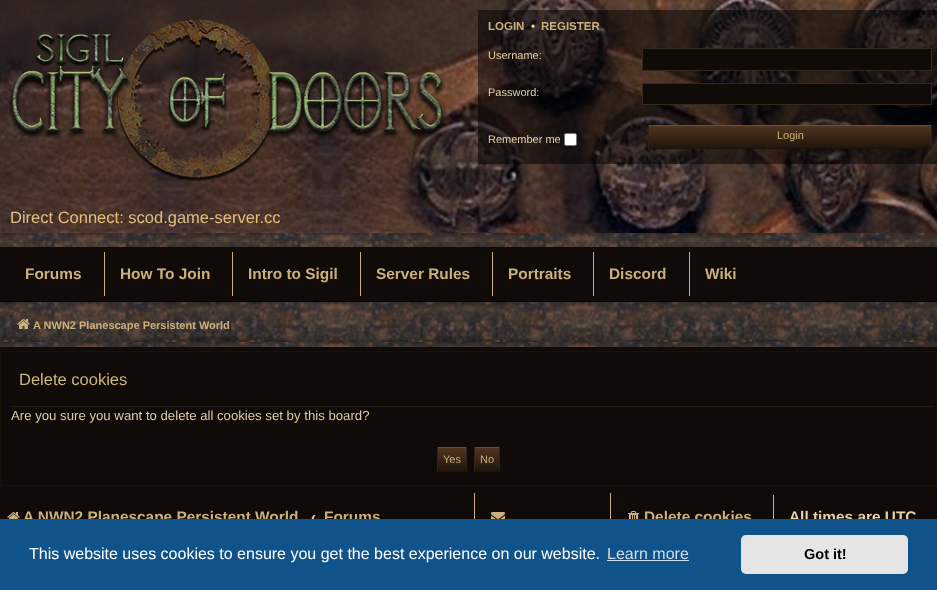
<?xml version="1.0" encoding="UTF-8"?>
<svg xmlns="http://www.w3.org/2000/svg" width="937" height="590">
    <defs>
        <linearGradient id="g1" gradientUnits="userSpaceOnUse" x1="790" y1="126" x2="790" y2="148"><stop offset="0" stop-color="#51351F"/><stop offset="1" stop-color="#21150C"/></linearGradient>
        <linearGradient id="g2" gradientUnits="userSpaceOnUse" x1="452" y1="448" x2="452" y2="471"><stop offset="0" stop-color="#51351F"/><stop offset="1" stop-color="#21150C"/></linearGradient>
        <linearGradient id="g3" gradientUnits="userSpaceOnUse" x1="487" y1="448" x2="487" y2="471"><stop offset="0" stop-color="#51351F"/><stop offset="1" stop-color="#21150C"/></linearGradient>
    </defs>
    <rect width="100%" height="100%" fill="#100B08"/>
    <image x="0" y="0" width="937" height="233" href="img_01.png"/>
    <rect x="478" y="10" width="459" height="154" fill="#000000" fill-opacity="0.5"/>
    <text x="488" y="30" font-family="Liberation Sans" font-size="11.5" font-weight="700" fill="#CCB07C">LOGIN</text>
    <text x="531" y="30" font-family="Liberation Sans" font-size="11.5" font-weight="700" fill="#E7D1A9">•</text>
    <text x="541" y="30" font-family="Liberation Sans" font-size="11.5" font-weight="700" fill="#CCB07C">REGISTER</text>
    <text x="488" y="59" font-family="Liberation Sans" font-size="11" fill="#E7D1A9">Username:</text>
    <rect x="642.5" y="48.5" width="289" height="22" fill="#110B08" stroke="#35281D"/>
    <text x="488" y="96" font-family="Liberation Sans" font-size="11" fill="#E7D1A9">Password:</text>
    <rect x="642.5" y="83.5" width="289" height="21" fill="#110B08" stroke="#35281D"/>
    <text x="488" y="143" font-family="Liberation Sans" font-size="11" fill="#E7D1A9">Remember me</text>
    <rect x="564.5" y="133.5" width="12" height="12" rx="1.5" fill="#FFFFFF" stroke="#767676"/>
    <rect x="649" y="126" width="282" height="22" fill="url(#g1)"/>
    <rect x="648" y="125" width="284" height="1" fill="#6F4D31"/>
    <rect x="931" y="125" width="1" height="24" fill="#332214"/>
    <rect x="648" y="148" width="284" height="1" fill="#1B120A"/>
    <rect x="648" y="125" width="1" height="24" fill="#332214"/>
    <text x="777" y="139" font-family="Liberation Sans" font-size="11" fill="#CCB07C">Login</text>
    <image x="9" y="19" width="437" height="162" href="img_02.png"/>
    <text x="10" y="223" font-family="Liberation Sans" font-size="16.5" fill="#E1BE80">Direct Connect: scod.game-server.cc</text>
    <image x="0" y="233" width="937" height="14" href="img_03.png"/>
    <text x="25" y="279" font-family="Liberation Sans" font-size="15.4" font-weight="700" fill="#CCB07C">Forums</text>
    <rect x="104" y="252" width="1" height="44" fill="#CCB07C"/>
    <text x="120" y="279" font-family="Liberation Sans" font-size="15.4" font-weight="700" fill="#CCB07C">How To Join</text>
    <rect x="232" y="252" width="1" height="44" fill="#CCB07C"/>
    <text x="248" y="279" font-family="Liberation Sans" font-size="15.4" font-weight="700" fill="#CCB07C">Intro to Sigil</text>
    <rect x="360" y="252" width="1" height="44" fill="#CCB07C"/>
    <text x="376" y="279" font-family="Liberation Sans" font-size="15.4" font-weight="700" fill="#CCB07C">Server Rules</text>
    <rect x="492" y="252" width="1" height="44" fill="#CCB07C"/>
    <text x="508" y="279" font-family="Liberation Sans" font-size="15.4" font-weight="700" fill="#CCB07C">Portraits</text>
    <rect x="593" y="252" width="1" height="44" fill="#CCB07C"/>
    <text x="609" y="279" font-family="Liberation Sans" font-size="15.4" font-weight="700" fill="#CCB07C">Discord</text>
    <rect x="689" y="252" width="1" height="44" fill="#CCB07C"/>
    <text x="705" y="279" font-family="Liberation Sans" font-size="15.4" font-weight="700" fill="#CCB07C">Wiki</text>
    <image x="0" y="302" width="937" height="45" href="img_04.png"/>
    <rect x="0" y="301" width="937" height="1" fill="#080401"/>
    <image x="17" y="319" width="13" height="10" href="img_05.png"/>
    <text x="33" y="329" font-family="Liberation Sans" font-size="11" font-weight="700" fill="#CCB07C">A NWN2 Planescape Persistent World</text>
    <rect x="0.5" y="351.5" width="936" height="134" fill="none" stroke="#1B110A"/>
    <rect x="11" y="406" width="923" height="1" fill="#211914"/>
    <text x="19" y="385" font-family="Liberation Sans" font-size="16.5" fill="#CEB77D">Delete cookies</text>
    <text x="11" y="420" font-family="Liberation Sans" font-size="13.2" fill="#DECBA4">Are you sure you want to delete all cookies set by this board?</text>
    <rect x="438" y="448" width="28" height="23" fill="url(#g2)"/>
    <rect x="437" y="447" width="30" height="1" fill="#6F4D31"/>
    <rect x="466" y="447" width="1" height="25" fill="#332214"/>
    <rect x="437" y="471" width="30" height="1" fill="#1B120A"/>
    <rect x="437" y="447" width="1" height="25" fill="#332214"/>
    <text x="443" y="463" font-family="Liberation Sans" font-size="11" fill="#CCB07C">Yes</text>
    <rect x="475" y="448" width="24" height="23" fill="url(#g3)"/>
    <rect x="474" y="447" width="26" height="1" fill="#6F4D31"/>
    <rect x="499" y="447" width="1" height="25" fill="#332214"/>
    <rect x="474" y="471" width="26" height="1" fill="#1B120A"/>
    <rect x="474" y="447" width="1" height="25" fill="#332214"/>
    <text x="480" y="463" font-family="Liberation Sans" font-size="11" fill="#CCB07C">No</text>
    <image x="7" y="512" width="13" height="7" href="img_06.png"/>
    <text x="23" y="522" font-family="Liberation Sans" font-size="15.4" font-weight="700" fill="#CCB07C">A NWN2 Planescape Persistent World</text>
    <text x="311" y="522" font-family="Liberation Sans" font-size="15.4" font-weight="700" fill="#E7D1A9">‹</text>
    <text x="324" y="522" font-family="Liberation Sans" font-size="15.4" font-weight="700" fill="#CCB07C">Forums</text>
    <rect x="474" y="493" width="1" height="26" fill="#CCB07C"/>
    <image x="491" y="512" width="14" height="7" href="img_07.png"/>
    <rect x="610" y="493" width="1" height="26" fill="#CCB07C"/>
    <image x="628" y="511" width="11" height="8" href="img_08.png"/>
    <text x="644" y="522" font-family="Liberation Sans" font-size="15.4" font-weight="700" fill="#CCB07C">Delete cookies</text>
    <rect x="773" y="495" width="1" height="24" fill="#CCB07C"/>
    <text x="789" y="522" font-family="Liberation Sans" font-size="15.4" font-weight="700" fill="#E7D1A9">All times are UTC</text>
    <rect x="0" y="519" width="937" height="71" fill="#0F538A"/>
    <text x="29" y="559" font-family="Liberation Sans" font-size="16" fill="#FFFFFF">This website uses cookies to ensure you get the best experience on our website.</text>
    <text x="607" y="559" font-family="Liberation Sans" font-size="16" fill="#CFDDE8">Learn more</text>
    <rect x="607" y="560" width="82" height="1" fill="#CFDDE8"/>
    <rect x="741" y="535" width="167" height="39" rx="5" fill="#E5E5E5"/>
    <text x="804" y="559" font-family="Liberation Sans" font-size="14.5" font-weight="700" fill="#000000">Got it!</text>
</svg>
